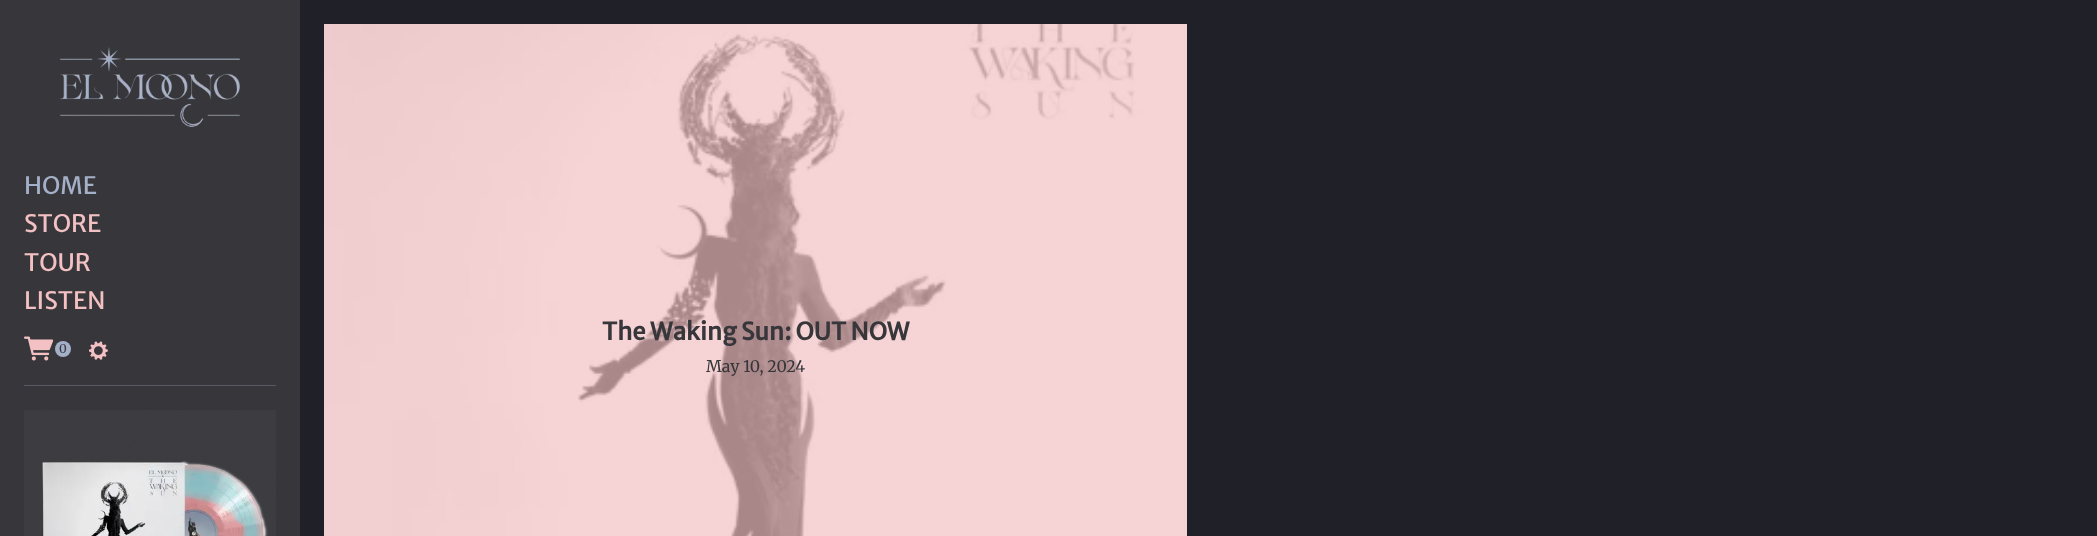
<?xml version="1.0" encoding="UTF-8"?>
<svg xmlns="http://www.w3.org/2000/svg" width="2097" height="536">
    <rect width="100%" height="100%" fill="#202128"/>
    <rect x="0" y="0" width="300" height="536" fill="#37373B"/>
    <image x="60" y="47" width="180" height="80" href="img_01.png"/>
    <rect x="24" y="385" width="252" height="1" fill="#585B65"/>
    <text x="24" y="194" font-family="Merriweather Sans" font-size="24" fill="#A4B0C8">HOME</text>
    <text font-family="Merriweather Sans" font-size="24" fill="#F3C1C3">
        <tspan x="24" y="232">STORE</tspan>
        <tspan x="24" y="271">TOUR</tspan>
        <tspan x="24" y="309">LISTEN</tspan>
    </text>
    <image x="24" y="336" width="30" height="25" href="img_02.png"/>
    <circle cx="63" cy="349" r="8" fill="#A4B0C8"/>
    <text x="59" y="353" font-family="Merriweather" font-size="12" font-weight="300" fill="#37373B">0</text>
    <image x="89" y="341" width="19" height="19" href="img_03.png"/>
    <image x="24" y="410" width="252" height="126" href="img_04.png"/>
    <rect x="324" y="24" width="863" height="512" fill="#F3C1C3"/>
    <image x="324" y="24" width="863" height="512" href="img_05.png"/>
    <text x="602" y="340" font-family="Merriweather Sans" font-size="24" font-weight="700" fill="#37373B">The Waking Sun: OUT NOW</text>
    <text x="706" y="372" font-family="Merriweather" font-size="16" font-weight="300" fill="#37373B">May 10, 2024</text>
</svg>
